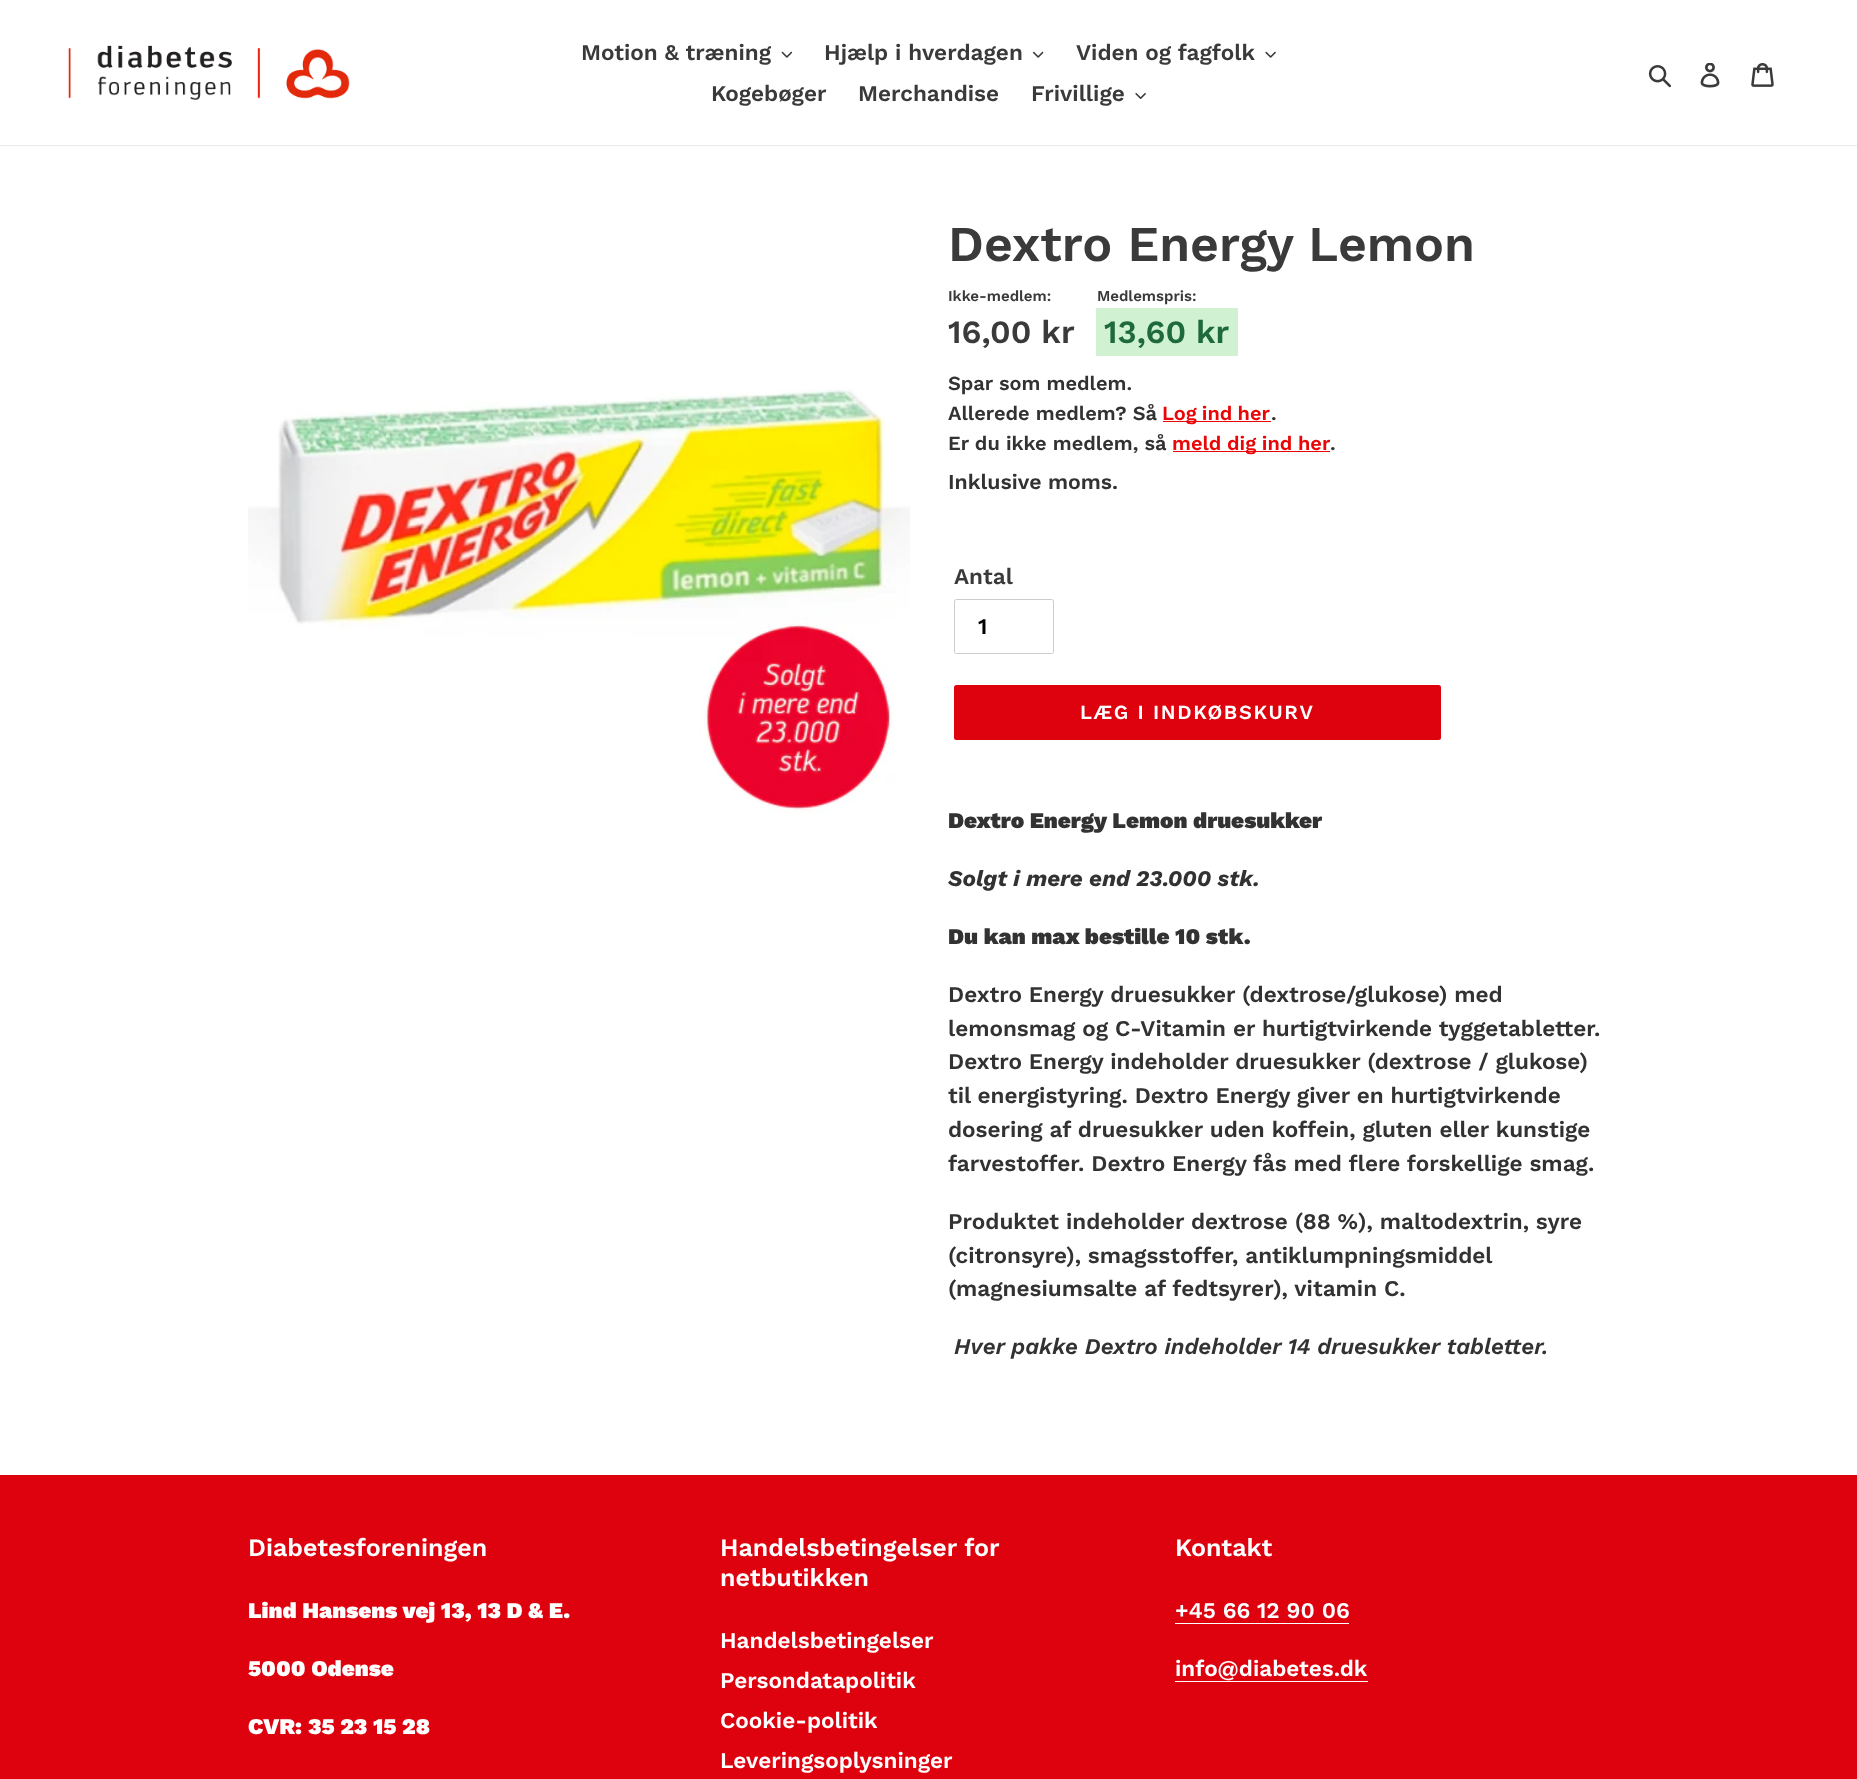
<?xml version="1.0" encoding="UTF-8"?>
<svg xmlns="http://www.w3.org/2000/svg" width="1857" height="1779">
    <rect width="100%" height="100%" fill="#FFFFFF"/>
    <rect x="0" y="145" width="1857" height="1" fill="#EBEBEB"/>
    <image x="68" y="45" width="282" height="55" href="img_01.png"/>
    <text x="581" y="60" font-family="Work Sans" font-size="22.5" font-weight="600" fill="#3A3A3A">Motion &amp; træning</text>
    <image x="781" y="51" width="12" height="7" href="img_02.png"/>
    <text x="824" y="60" font-family="Work Sans" font-size="22.5" font-weight="600" fill="#3A3A3A">Hjælp i hverdagen</text>
    <image x="1033" y="51" width="11" height="7" href="img_03.png"/>
    <text x="1076" y="60" font-family="Work Sans" font-size="22.5" font-weight="600" fill="#3A3A3A">Viden og fagfolk</text>
    <image x="1265" y="51" width="11" height="7" href="img_04.png"/>
    <text x="711" y="101" font-family="Work Sans" font-size="22.5" font-weight="600" fill="#3A3A3A">Kogebøger</text>
    <text x="858" y="101" font-family="Work Sans" font-size="22.5" font-weight="600" fill="#3A3A3A">Merchandise</text>
    <text x="1031" y="101" font-family="Work Sans" font-size="22.5" font-weight="600" fill="#3A3A3A">Frivillige</text>
    <image x="1135" y="93" width="11" height="6" href="img_05.png"/>
    <image x="1648" y="65" width="23" height="23" href="img_06.png"/>
    <image x="1700" y="63" width="20" height="25" href="img_07.png"/>
    <image x="1751" y="63" width="23" height="24" href="img_08.png"/>
    <image x="248" y="389" width="662" height="424" href="img_09.png"/>
    <text x="948" y="261" font-family="Work Sans" font-size="50" font-weight="600" fill="#3A3A3A">Dextro Energy Lemon</text>
    <text x="948" y="301" font-family="Work Sans" font-size="15" font-weight="600" fill="#3A3A3A">Ikke-medlem:</text>
    <text x="948" y="343" font-family="Work Sans" font-size="32.5" font-weight="600" fill="#3A3A3A">16,00 kr</text>
    <text x="1097" y="301" font-family="Work Sans" font-size="15" font-weight="600" fill="#3A3A3A">Medlemspris:</text>
    <rect x="1096" y="308" width="142" height="48" fill="#D0F1D2"/>
    <text x="1104" y="343" font-family="Work Sans" font-size="32.5" font-weight="600" fill="#1F6A3D">13,60 kr</text>
    <text font-family="Work Sans" font-size="20" font-weight="600" fill="#333232">
        <tspan x="948" y="390">Spar som medlem.</tspan>
        <tspan x="948" y="420">Allerede medlem? Så</tspan>
    </text>
    <rect x="1163" y="421" width="108" height="1" fill="#EA0606"/>
    <text x="1162" y="420" word-spacing="-1" font-family="Work Sans" font-size="20" font-weight="600" fill="#EA0606">Log ind her</text>
    <text x="1271" y="420" font-family="Work Sans" font-size="20" font-weight="600" fill="#333232">.</text>
    <text x="948" y="450" font-family="Work Sans" font-size="20" font-weight="600" fill="#333232">Er du ikke medlem, så</text>
    <rect x="1173" y="451" width="157" height="1" fill="#EA0606"/>
    <text x="1172" y="450" word-spacing="-0.5" font-family="Work Sans" font-size="20" font-weight="600" fill="#EA0606">meld dig ind her</text>
    <text x="1330" y="450" font-family="Work Sans" font-size="20" font-weight="600" fill="#333232">.</text>
    <text x="948" y="489" font-family="Work Sans" font-size="21.25" font-weight="600" fill="#333232">Inklusive moms.</text>
    <text x="954" y="584" font-family="Work Sans" font-size="22.5" font-weight="600" fill="#3A3A3A">Antal</text>
    <rect x="954.5" y="599.5" width="99" height="54" rx="2" fill="none" stroke="#CCCCCC"/>
    <text x="978" y="634" font-family="Work Sans" font-size="22.5" font-weight="600" fill="#000000">1</text>
    <rect x="954" y="685" width="487" height="55" rx="2.5" fill="#DD020E"/>
    <text x="1080" y="719" font-family="Work Sans" font-size="20" font-weight="600" letter-spacing="1.6" fill="#FFFFFF">LÆG I INDKØBSKURV</text>
    <text x="948" y="828" font-family="Work Sans" font-size="22.5" font-weight="900" fill="#333232">Dextro Energy Lemon druesukker</text>
    <text x="948" y="886" font-family="Work Sans" font-size="22.5" font-weight="700" font-style="italic" fill="#333232">Solgt i mere end 23.000 stk.</text>
    <text x="948" y="944" font-family="Work Sans" font-size="22.5" font-weight="900" fill="#333232">Du kan max bestille 10 stk.</text>
    <text font-family="Work Sans" font-size="22.5" font-weight="600" fill="#333232">
        <tspan x="948" y="1002">Dextro Energy druesukker (dextrose/glukose) med</tspan>
        <tspan x="948" y="1036">lemonsmag og C-Vitamin er hurtigtvirkende tyggetabletter.</tspan>
        <tspan x="948" y="1069">Dextro Energy indeholder druesukker (dextrose / glukose)</tspan>
        <tspan x="948" y="1103">til energistyring. Dextro Energy giver en hurtigtvirkende</tspan>
        <tspan x="948" y="1137">dosering af druesukker uden koffein, gluten eller kunstige</tspan>
        <tspan x="948" y="1171">farvestoffer. Dextro Energy fås med flere forskellige smag.</tspan>
    </text>
    <text font-family="Work Sans" font-size="22.5" font-weight="600" fill="#333232">
        <tspan x="948" y="1229">Produktet indeholder dextrose (88 %), maltodextrin, syre</tspan>
        <tspan x="948" y="1263">(citronsyre), smagsstoffer, antiklumpningsmiddel</tspan>
        <tspan x="948" y="1296">(magnesiumsalte af fedtsyrer), vitamin C.</tspan>
    </text>
    <text x="954" y="1354" font-family="Work Sans" font-size="22.5" font-weight="600" font-style="italic" fill="#333232">Hver pakke Dextro indeholder 14 druesukker tabletter.</text>
    <rect x="0" y="1475" width="1857" height="304" fill="#DD020E"/>
    <text x="248" y="1556" font-family="Work Sans" font-size="25" font-weight="600" fill="#FFFFFF">Diabetesforeningen</text>
    <text x="248" y="1618" font-family="Work Sans" font-size="22.5" font-weight="900" fill="#FFFFFF">Lind Hansens vej 13, 13 D &amp; E.</text>
    <text x="248" y="1676" font-family="Work Sans" font-size="22.5" font-weight="900" fill="#FFFFFF">5000 Odense</text>
    <text x="248" y="1734" font-family="Work Sans" font-size="22.5" font-weight="900" fill="#FFFFFF">CVR: 35 23 15 28</text>
    <text font-family="Work Sans" font-size="25" font-weight="600" fill="#FFFFFF">
        <tspan x="720" y="1556">Handelsbetingelser for</tspan>
        <tspan x="720" y="1586">netbutikken</tspan>
    </text>
    <text font-family="Work Sans" font-size="22.5" font-weight="600" fill="#FFFFFF">
        <tspan x="720" y="1648">Handelsbetingelser</tspan>
        <tspan x="720" y="1688">Persondatapolitik</tspan>
        <tspan x="720" y="1728">Cookie-politik</tspan>
        <tspan x="720" y="1768">Leveringsoplysninger</tspan>
    </text>
    <text x="1175" y="1556" font-family="Work Sans" font-size="25" font-weight="600" fill="#FFFFFF">Kontakt</text>
    <text x="1175" y="1618" font-family="Work Sans" font-size="22.5" font-weight="600" fill="#FFFFFF">+45 66 12 90 06</text>
    <rect x="1175" y="1623" width="174" height="1" fill="#FFFFFF"/>
    <text x="1175" y="1676" font-family="Work Sans" font-size="22.5" font-weight="600" fill="#FFFFFF">info@diabetes.dk</text>
    <rect x="1175" y="1681" width="193" height="1" fill="#FFFFFF"/>
</svg>
